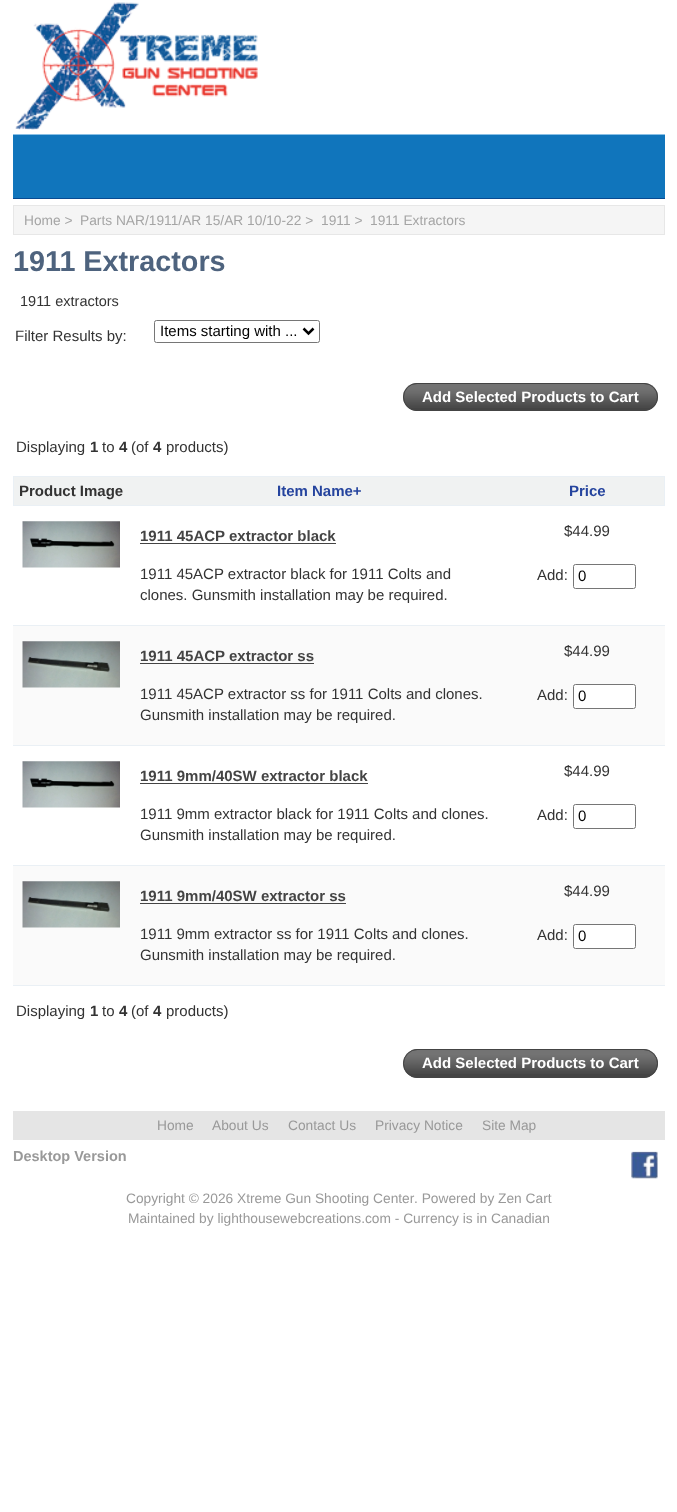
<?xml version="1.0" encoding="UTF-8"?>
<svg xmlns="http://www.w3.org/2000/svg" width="677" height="1512">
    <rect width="100%" height="100%" fill="#FFFFFF"/>
    <image x="15" y="2" width="243" height="128" href="img_01.png"/>
    <rect x="13" y="134" width="652" height="1" fill="#89BFE5"/>
    <rect x="13" y="198" width="652" height="1" fill="#074B93"/>
    <rect x="14" y="135" width="651" height="63" fill="#1075BC"/>
    <rect x="13" y="135" width="1" height="63" fill="#1276BC"/>
    <rect x="13.5" y="205.5" width="651" height="29" fill="#F5F5F5" stroke="#E7E7E7"/>
    <text x="24" y="225" font-family="Liberation Sans" font-size="13.75" fill="#A5A5A5">Home &gt;</text>
    <text x="80" y="225" font-family="Liberation Sans" font-size="13.75" fill="#A5A5A5">Parts NAR/1911/AR 15/AR 10/10-22 &gt;</text>
    <text x="321" y="225" font-family="Liberation Sans" font-size="13.75" fill="#A5A5A5" xml:space="preserve">1911 &gt;  1911 Extractors</text>
    <text x="13" y="271" font-family="Liberation Sans" font-size="28.75" font-weight="700" fill="#4E637E">1911 Extractors</text>
    <text x="20" y="306" font-family="Liberation Sans" font-size="14.5" fill="#333333">1911 extractors</text>
    <text x="15" y="341" font-family="Liberation Sans" font-size="15" fill="#333333">Filter Results by:</text>
    <rect x="154.5" y="320.5" width="165" height="22" rx="2" fill="none" stroke="#767676"/>
    <path d="M 303.5 328.5 L 308.5 333.5 L 313.5 328.5" fill="none" stroke="#000000" stroke-width="2.5"/>
    <text x="160" y="336" font-family="Liberation Sans" font-size="15" fill="#000000">Items starting with ...</text>
    <rect x="403" y="383" width="255" height="28" rx="14" fill="#444444"/>
    <image x="403" y="383" width="255" height="25" href="img_02.png"/>
    <rect x="403.5" y="383.5" width="254" height="27" rx="13.5" fill="none" stroke="#444444"/>
    <text x="422" y="402" font-family="Liberation Sans" font-size="15" font-weight="700" fill="#FFFFFF">Add Selected Products to Cart</text>
    <text x="16" y="452" font-family="Liberation Sans" font-size="15" fill="#333333">Displaying</text>
    <text x="90" y="452" font-family="Liberation Sans" font-size="15" font-weight="700" fill="#333333">1</text>
    <text x="102" y="452" font-family="Liberation Sans" font-size="15" fill="#333333">to</text>
    <text x="119" y="452" font-family="Liberation Sans" font-size="15" font-weight="700" fill="#333333">4</text>
    <text x="131" y="452" font-family="Liberation Sans" font-size="15" fill="#333333">(of</text>
    <text x="153" y="452" font-family="Liberation Sans" font-size="15" font-weight="700" fill="#333333">4</text>
    <text x="166" y="452" font-family="Liberation Sans" font-size="15" fill="#333333">products)</text>
    <rect x="13.5" y="476.5" width="651" height="29" fill="#F0F2F2" stroke="#EAF0F5"/>
    <text x="19" y="496" font-family="Liberation Sans" font-size="15" font-weight="700" fill="#333333">Product Image</text>
    <text x="277" y="496" font-family="Liberation Sans" font-size="15" font-weight="700" fill="#25449E">Item Name+</text>
    <text x="569" y="496" font-family="Liberation Sans" font-size="15" font-weight="700" fill="#25449E">Price</text>
    <rect x="13" y="625" width="652" height="1" fill="#EAF0F5"/>
    <image x="22" y="521" width="98" height="47" href="img_03.png"/>
    <text x="140" y="541" font-family="Liberation Sans" font-size="15" font-weight="700" fill="#444444">1911 45ACP extractor black</text>
    <rect x="140" y="543" width="196" height="1" fill="#444444"/>
    <text font-family="Liberation Sans" font-size="15" fill="#333333">
        <tspan x="140" y="579">1911 45ACP extractor black for 1911 Colts and</tspan>
        <tspan x="140" y="600">clones. Gunsmith installation may be required.</tspan>
    </text>
    <text x="564" y="536" font-family="Liberation Sans" font-size="15" fill="#333333">$44.99</text>
    <text x="537" y="580" font-family="Liberation Sans" font-size="15" fill="#333333">Add:</text>
    <rect x="573.5" y="564.5" width="62" height="24" rx="2" fill="none" stroke="#767676"/>
    <text x="578" y="581" font-family="Liberation Sans" font-size="15" fill="#000000">0</text>
    <rect x="13" y="626" width="652" height="119" fill="#FAFAFA"/>
    <rect x="13" y="745" width="652" height="1" fill="#EAF0F5"/>
    <image x="22" y="641" width="98" height="47" href="img_04.png"/>
    <text x="140" y="661" font-family="Liberation Sans" font-size="15" font-weight="700" fill="#444444">1911 45ACP extractor ss</text>
    <rect x="140" y="663" width="174" height="1" fill="#444444"/>
    <text font-family="Liberation Sans" font-size="15" fill="#333333">
        <tspan x="140" y="699">1911 45ACP extractor ss for 1911 Colts and clones.</tspan>
        <tspan x="140" y="720">Gunsmith installation may be required.</tspan>
    </text>
    <text x="564" y="656" font-family="Liberation Sans" font-size="15" fill="#333333">$44.99</text>
    <text x="537" y="700" font-family="Liberation Sans" font-size="15" fill="#333333">Add:</text>
    <rect x="573.5" y="684.5" width="62" height="24" rx="2" fill="#FFFFFF" stroke="#767676"/>
    <text x="578" y="701" font-family="Liberation Sans" font-size="15" fill="#000000">0</text>
    <rect x="13" y="865" width="652" height="1" fill="#EAF0F5"/>
    <image x="22" y="761" width="98" height="47" href="img_03.png"/>
    <text x="140" y="781" font-family="Liberation Sans" font-size="15" font-weight="700" fill="#444444">1911 9mm/40SW extractor black</text>
    <rect x="140" y="783" width="228" height="1" fill="#444444"/>
    <text font-family="Liberation Sans" font-size="15" fill="#333333">
        <tspan x="140" y="819">1911 9mm extractor black for 1911 Colts and clones.</tspan>
        <tspan x="140" y="840">Gunsmith installation may be required.</tspan>
    </text>
    <text x="564" y="776" font-family="Liberation Sans" font-size="15" fill="#333333">$44.99</text>
    <text x="537" y="820" font-family="Liberation Sans" font-size="15" fill="#333333">Add:</text>
    <rect x="573.5" y="804.5" width="62" height="24" rx="2" fill="none" stroke="#767676"/>
    <text x="578" y="821" font-family="Liberation Sans" font-size="15" fill="#000000">0</text>
    <rect x="13" y="866" width="652" height="119" fill="#FAFAFA"/>
    <rect x="13" y="985" width="652" height="1" fill="#EAF0F5"/>
    <image x="22" y="881" width="98" height="47" href="img_04.png"/>
    <text x="140" y="901" font-family="Liberation Sans" font-size="15" font-weight="700" fill="#444444">1911 9mm/40SW extractor ss</text>
    <rect x="140" y="903" width="206" height="1" fill="#444444"/>
    <text font-family="Liberation Sans" font-size="15" fill="#333333">
        <tspan x="140" y="939">1911 9mm extractor ss for 1911 Colts and clones.</tspan>
        <tspan x="140" y="960">Gunsmith installation may be required.</tspan>
    </text>
    <text x="564" y="896" font-family="Liberation Sans" font-size="15" fill="#333333">$44.99</text>
    <text x="537" y="940" font-family="Liberation Sans" font-size="15" fill="#333333">Add:</text>
    <rect x="573.5" y="924.5" width="62" height="24" rx="2" fill="#FFFFFF" stroke="#767676"/>
    <text x="578" y="941" font-family="Liberation Sans" font-size="15" fill="#000000">0</text>
    <text x="16" y="1016" font-family="Liberation Sans" font-size="15" fill="#333333">Displaying</text>
    <text x="90" y="1016" font-family="Liberation Sans" font-size="15" font-weight="700" fill="#333333">1</text>
    <text x="102" y="1016" font-family="Liberation Sans" font-size="15" fill="#333333">to</text>
    <text x="119" y="1016" font-family="Liberation Sans" font-size="15" font-weight="700" fill="#333333">4</text>
    <text x="131" y="1016" font-family="Liberation Sans" font-size="15" fill="#333333">(of</text>
    <text x="153" y="1016" font-family="Liberation Sans" font-size="15" font-weight="700" fill="#333333">4</text>
    <text x="166" y="1016" font-family="Liberation Sans" font-size="15" fill="#333333">products)</text>
    <rect x="403" y="1049" width="255" height="29" rx="14.5" fill="#444444"/>
    <image x="403" y="1050" width="255" height="24" href="img_05.png"/>
    <rect x="403.5" y="1049.5" width="254" height="28" rx="14" fill="none" stroke="#444444"/>
    <text x="422" y="1068" font-family="Liberation Sans" font-size="15" font-weight="700" fill="#FFFFFF">Add Selected Products to Cart</text>
    <rect x="13" y="1111" width="652" height="29" fill="#E5E5E5"/>
    <text x="157" y="1130" font-family="Liberation Sans" font-size="13.75" fill="#999999">Home</text>
    <text x="212" y="1130" font-family="Liberation Sans" font-size="13.75" fill="#999999">About Us</text>
    <text x="288" y="1130" font-family="Liberation Sans" font-size="13.75" fill="#999999">Contact Us</text>
    <text x="375" y="1130" font-family="Liberation Sans" font-size="13.75" fill="#999999">Privacy Notice</text>
    <text x="482" y="1130" font-family="Liberation Sans" font-size="13.75" fill="#999999">Site Map</text>
    <text x="13" y="1161" font-family="Liberation Sans" font-size="14.5" font-weight="700" fill="#999999">Desktop Version</text>
    <image x="631" y="1151" width="27" height="28" href="img_06.png"/>
    <text x="126" y="1203" font-family="Liberation Sans" font-size="13.75" fill="#999999">Copyright © 2026</text>
    <text x="237" y="1203" font-family="Liberation Sans" font-size="13.75" fill="#999999">Xtreme Gun Shooting Center</text>
    <text x="414" y="1203" font-family="Liberation Sans" font-size="13.75" fill="#999999">. Powered by Zen Cart</text>
    <text x="128" y="1223" font-family="Liberation Sans" font-size="13.75" fill="#999999">Maintained by lighthousewebcreations.com - Currency is in Canadian</text>
</svg>
